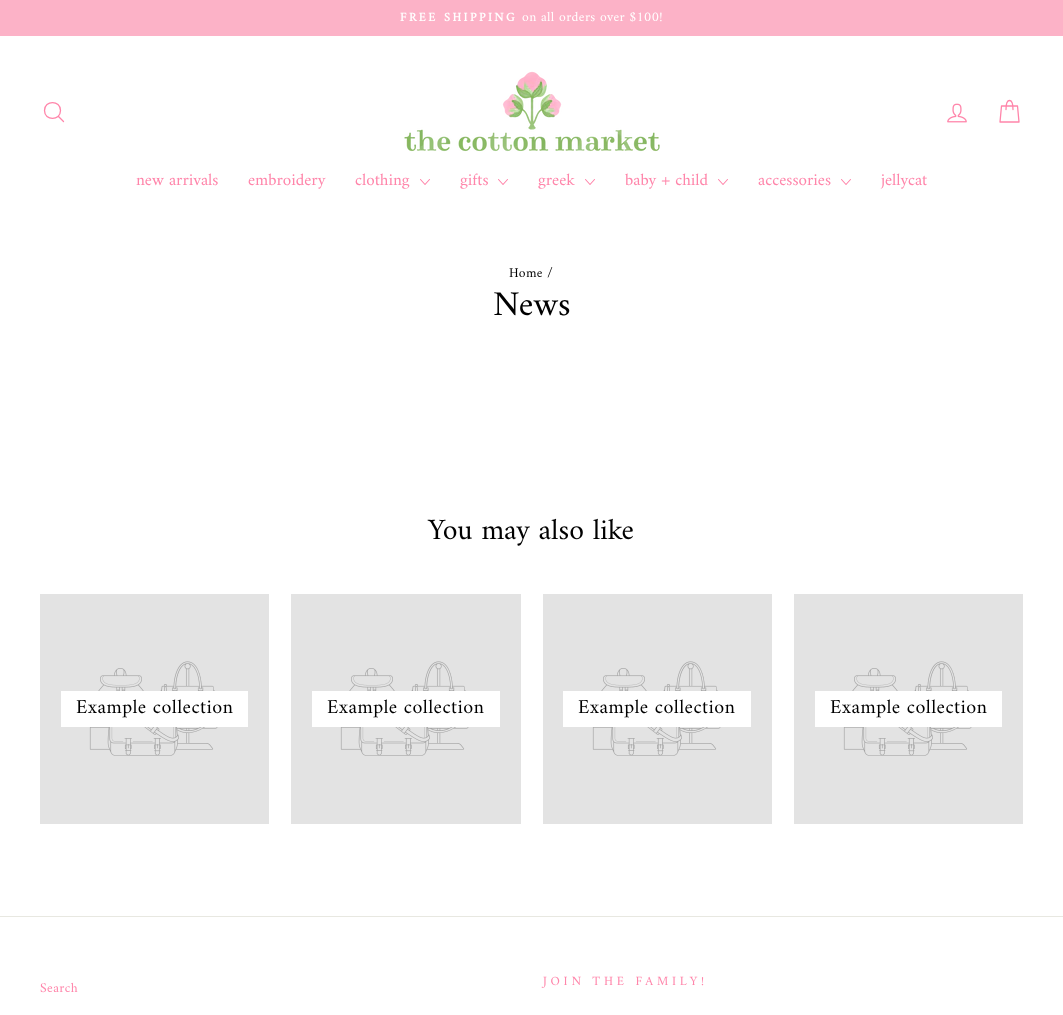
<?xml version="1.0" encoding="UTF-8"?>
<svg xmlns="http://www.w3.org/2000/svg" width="1063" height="1015">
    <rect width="100%" height="100%" fill="#FFFFFF"/>
    <rect x="0" y="0" width="1063" height="36" fill="#FCB2C7"/>
    <text x="400" y="21" font-family="Amiri" font-size="12.25" font-weight="700" letter-spacing="2.5" fill="#FFFFFF">FREE SHIPPING</text>
    <text x="522" y="21" font-family="Amiri" font-size="13.6" letter-spacing="0.4" fill="#FFFFFF">on all orders over $100!</text>
    <path d="M 60.5 110.5 C 60.5 121 44.5 121 44.5 110.5 C 44.5 100 60.5 100 60.5 110.5 Z M 63.5 121.5 L 58.5 116.5" fill="none" stroke="#FF85AA" stroke-width="1.3" stroke-linecap="round" stroke-linejoin="round"/>
    <image x="404" y="71" width="256" height="81" href="img_01.png"/>
    <image x="947" y="103" width="20" height="20" href="img_02.png"/>
    <path d="M 1006 109.5 C 1006 97.5 1013 97.5 1013 109.5 M 1001.5 106 H 1017.5 L 1019 122 H 1000 Z" fill="none" stroke="#FF85AA" stroke-width="1.3" stroke-linecap="round" stroke-linejoin="round"/>
    <text x="136" y="185" font-family="Amiri" font-size="17" fill="#FF85AA">new arrivals</text>
    <text x="248" y="185" font-family="Amiri" font-size="17" fill="#FF85AA">embroidery</text>
    <text x="355" y="185" font-family="Amiri" font-size="17" fill="#FF85AA">clothing</text>
    <path d="M 420.5 179.5 L 425 184.5 L 429.5 179.5" fill="none" stroke="#FF85AA" stroke-width="1.1" stroke-linecap="round" stroke-linejoin="round"/>
    <text x="460" y="185" font-family="Amiri" font-size="17" fill="#FF85AA">gifts</text>
    <path d="M 498.5 179.5 L 503 184.5 L 507.5 179.5" fill="none" stroke="#FF85AA" stroke-width="1.1" stroke-linecap="round" stroke-linejoin="round"/>
    <text x="538" y="185" font-family="Amiri" font-size="17" fill="#FF85AA">greek</text>
    <path d="M 585.5 179.5 L 590 184.5 L 594.5 179.5" fill="none" stroke="#FF85AA" stroke-width="1.1" stroke-linecap="round" stroke-linejoin="round"/>
    <text x="625" y="185" font-family="Amiri" font-size="17" fill="#FF85AA">baby + child</text>
    <path d="M 718.5 179.5 L 723 184.5 L 727.5 179.5" fill="none" stroke="#FF85AA" stroke-width="1.1" stroke-linecap="round" stroke-linejoin="round"/>
    <text x="758" y="185" font-family="Amiri" font-size="17" fill="#FF85AA">accessories</text>
    <path d="M 841.5 179.5 L 846 184.5 L 850.5 179.5" fill="none" stroke="#FF85AA" stroke-width="1.1" stroke-linecap="round" stroke-linejoin="round"/>
    <text x="881" y="185" font-family="Amiri" font-size="17" fill="#FF85AA">jellycat</text>
    <text x="509" y="277" font-family="Amiri" font-size="13.6" letter-spacing="0.4" fill="#000000">Home /</text>
    <text x="493" y="315" font-family="Amiri" font-size="35" fill="#000000">News</text>
    <text x="428" y="539" font-family="Amiri" font-size="29.75" fill="#000000">You may also like</text>
    <rect x="40" y="594" width="229" height="230" fill="#E3E3E3"/>
    <image x="89" y="661" width="129" height="95" href="img_03.png"/>
    <rect x="61" y="691" width="187" height="36" fill="#FFFFFF"/>
    <text x="76" y="713" font-family="Amiri" font-size="20" letter-spacing="0.4" fill="#000000">Example collection</text>
    <rect x="291" y="594" width="230" height="230" fill="#E3E3E3"/>
    <image x="340" y="661" width="129" height="95" href="img_03.png"/>
    <rect x="312" y="691" width="188" height="36" fill="#FFFFFF"/>
    <text x="327" y="713" font-family="Amiri" font-size="20" letter-spacing="0.4" fill="#000000">Example collection</text>
    <rect x="543" y="594" width="229" height="230" fill="#E3E3E3"/>
    <image x="592" y="661" width="129" height="95" href="img_03.png"/>
    <rect x="563" y="691" width="188" height="36" fill="#FFFFFF"/>
    <text x="578" y="713" font-family="Amiri" font-size="20" letter-spacing="0.4" fill="#000000">Example collection</text>
    <rect x="794" y="594" width="229" height="230" fill="#E3E3E3"/>
    <image x="843" y="661" width="129" height="95" href="img_03.png"/>
    <rect x="815" y="691" width="187" height="36" fill="#FFFFFF"/>
    <text x="830" y="713" font-family="Amiri" font-size="20" letter-spacing="0.4" fill="#000000">Example collection</text>
    <rect x="0" y="916" width="1063" height="1" fill="#E8E8E1"/>
    <text x="40" y="992" font-family="Amiri" font-size="13.6" letter-spacing="0.4" fill="#FF85AA">Search</text>
    <text x="543" y="985" font-family="Amiri" font-size="12.75" letter-spacing="3.8" fill="#FF85AA">JOIN THE FAMILY!</text>
</svg>
